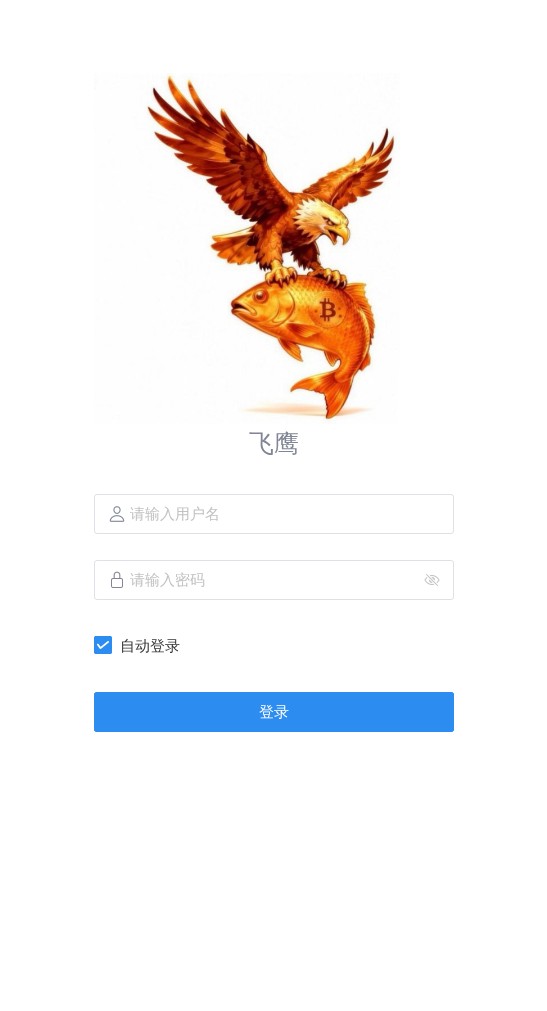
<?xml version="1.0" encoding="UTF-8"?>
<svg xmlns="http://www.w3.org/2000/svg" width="547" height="1011">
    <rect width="100%" height="100%" fill="#FFFFFF"/>
    <image x="94" y="73" width="306" height="351" href="img_01.png"/>
    <text x="249" y="452" font-family="WenQuanYi Zen Hei" font-size="25" font-weight="500" fill="#808695">飞鹰</text>
    <image x="109" y="506" width="16" height="16" href="img_02.png"/>
    <rect x="94.5" y="494.5" width="359" height="39" rx="2.5" fill="none" stroke="#E0E0E6"/>
    <text x="130" y="519" font-family="WenQuanYi Zen Hei" font-size="15" font-weight="500" fill="#C2C2C2">请输入用户名</text>
    <image x="111" y="571" width="12" height="17" href="img_03.png"/>
    <image x="424" y="574" width="16" height="12" href="img_04.png"/>
    <rect x="94.5" y="560.5" width="359" height="39" rx="2.5" fill="none" stroke="#E0E0E6"/>
    <text x="130" y="585" font-family="WenQuanYi Zen Hei" font-size="15" font-weight="500" fill="#C2C2C2">请输入密码</text>
    <rect x="94" y="636" width="18" height="18" rx="2" fill="#2D8CF0"/>
    <image x="97" y="641" width="12" height="8" href="img_05.png"/>
    <rect x="94.5" y="636.5" width="17" height="17" rx="1.5" fill="none" stroke="#2D8CF0"/>
    <text x="120" y="651" font-family="WenQuanYi Zen Hei" font-size="15" font-weight="500" fill="#333639">自动登录</text>
    <rect x="94" y="692" width="360" height="40" rx="3" fill="#2D8CF0"/>
    <rect x="94.5" y="692.5" width="359" height="39" rx="2.5" fill="none" stroke="#2D8CF0"/>
    <text x="259" y="717" font-family="WenQuanYi Zen Hei" font-size="15" font-weight="500" fill="#FFFFFF">登录</text>
</svg>
